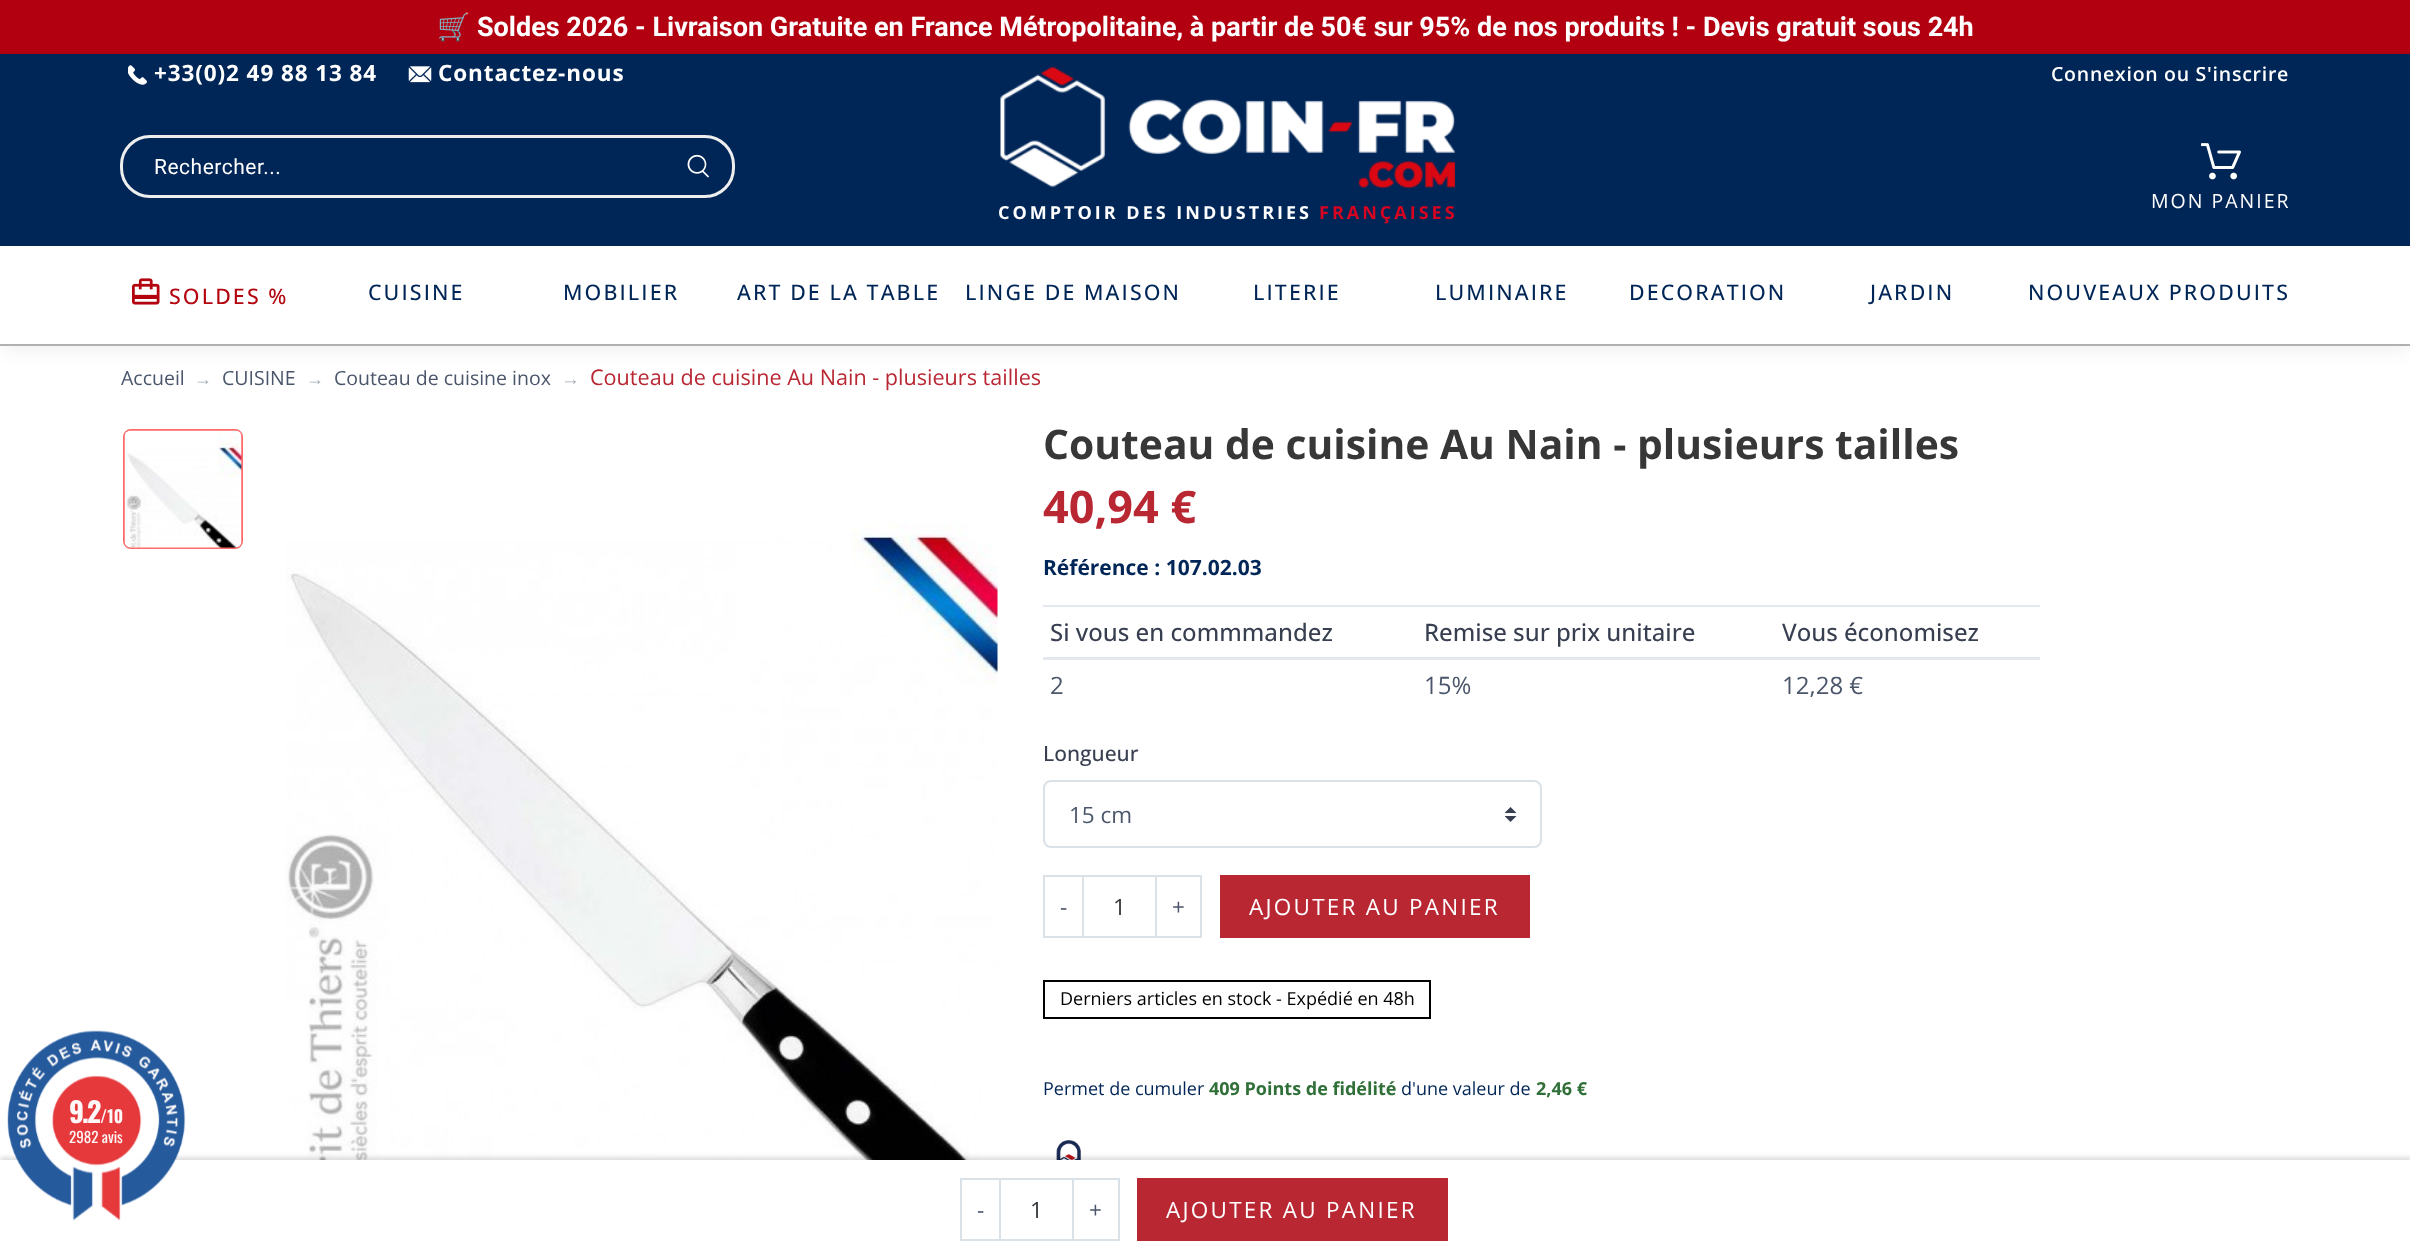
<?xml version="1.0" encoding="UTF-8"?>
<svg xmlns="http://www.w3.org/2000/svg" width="2410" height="1250">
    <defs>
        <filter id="blur1" x="-50%" y="-200%" width="200%" height="500%"><feGaussianBlur stdDeviation="2"/></filter>
        <filter id="blur2" x="-50%" y="-200%" width="200%" height="500%"><feGaussianBlur stdDeviation="9"/></filter>
    </defs>
    <rect width="100%" height="100%" fill="#FFFFFF"/>
    <image x="285" y="522" width="713" height="638" href="img_09.png"/>
    <image x="1056" y="1140" width="25" height="20" href="img_11.png"/>
    <rect x="0" y="1157" width="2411" height="91" fill="#000000" fill-opacity="0.13" filter="url(#blur1)"/>
    <rect x="0" y="1160" width="2410" height="90" fill="#FFFFFF"/>
    <image x="7" y="1030" width="179" height="191" href="img_01.png"/>
    <text x="69" y="1123" font-family="Oswald" font-size="28" font-weight="700" letter-spacing="-2" fill="#FEF7F7">9.2</text>
    <text x="100" y="1123" font-family="Oswald" font-size="17" font-weight="700" fill="#FEF7F7">/10</text>
    <text x="69" y="1143" font-family="Oswald" font-size="15" fill="#FEF7F7">2982 avis</text>
    <rect x="2" y="8" width="2407" height="342" fill="#000000" fill-opacity="0.06" filter="url(#blur2)"/>
    <rect x="0" y="344" width="2410" height="2" fill="#B0B0B0"/>
    <rect x="0" y="0" width="2410" height="54" fill="#B30010"/>
    <text x="437" y="36" font-family="Noto Color Emoji" font-size="27" fill="#FFFFFF">🛒</text>
    <text x="477" y="36" font-family="Roboto" font-size="27" font-weight="700" fill="#FFFFFF">Soldes 2026 - Livraison Gratuite en France Métropolitaine, à partir de 50€ sur 95% de nos produits ! - Devis gratuit sous 24h</text>
    <rect x="0" y="54" width="2410" height="192" fill="#002657"/>
    <image x="128" y="65" width="19" height="20" href="img_02.png"/>
    <text x="154" y="81" font-family="Open Sans" font-size="22.5" font-weight="700" letter-spacing="0.9" fill="#FFFFFF">+33(0)2 49 88 13 84</text>
    <image x="408" y="66" width="24" height="17" href="img_03.png"/>
    <text x="438" y="81" font-family="Open Sans" font-size="22.5" font-weight="700" letter-spacing="0.9" fill="#FFFFFF">Contactez-nous</text>
    <text x="2051" y="81" font-family="Open Sans" font-size="19.5" font-weight="600" letter-spacing="0.75" fill="#FFFFFF">Connexion</text>
    <text x="2164" y="81" font-family="Open Sans" font-size="19.5" font-weight="600" letter-spacing="0.75" fill="#FFFFFF">ou S'inscrire</text>
    <rect x="121.5" y="136.5" width="612" height="60" rx="28.5" fill="none" stroke="#EEEEEE" stroke-width="3"/>
    <text x="154" y="174" font-family="Roboto" font-size="21" letter-spacing="0.5" fill="#FFFFFF">Rechercher...</text>
    <image x="687" y="154" width="22" height="24" href="img_04.png"/>
    <image x="2201" y="143" width="40" height="37" href="img_05.png"/>
    <text x="2151" y="208" font-family="Open Sans" font-size="19.5" letter-spacing="2" fill="#FFFFFF">MON PANIER</text>
    <image x="1000" y="67" width="455" height="121" href="img_06.png"/>
    <text x="998" y="219" font-family="Open Sans" font-size="18" font-weight="700" letter-spacing="3" fill="#FFFFFF">COMPTOIR DES INDUSTRIES</text>
    <text x="1319" y="219" font-family="Open Sans" font-size="18" font-weight="700" letter-spacing="3" fill="#D70321">FRANÇAISES</text>
    <rect x="0" y="246" width="2410" height="98" fill="#FFFFFF"/>
    <image x="132" y="278" width="28" height="27" href="img_07.png"/>
    <text x="169" y="304" font-family="Open Sans" font-size="21.4" font-weight="500" letter-spacing="2.1" fill="#B3040F">SOLDES %</text>
    <text x="368" y="300" font-family="Open Sans" font-size="21.4" font-weight="500" letter-spacing="2.1" fill="#002657">CUISINE</text>
    <text x="563" y="300" font-family="Open Sans" font-size="21.4" font-weight="500" letter-spacing="2.1" fill="#002657">MOBILIER</text>
    <text x="737" y="300" font-family="Open Sans" font-size="21.4" font-weight="500" letter-spacing="2.1" fill="#002657">ART DE LA TABLE</text>
    <text x="965" y="300" font-family="Open Sans" font-size="21.4" font-weight="500" letter-spacing="2.1" fill="#002657">LINGE DE MAISON</text>
    <text x="1253" y="300" font-family="Open Sans" font-size="21.4" font-weight="500" letter-spacing="2.1" fill="#002657">LITERIE</text>
    <text x="1435" y="300" font-family="Open Sans" font-size="21.4" font-weight="500" letter-spacing="2.1" fill="#002657">LUMINAIRE</text>
    <text x="1629" y="300" font-family="Open Sans" font-size="21.4" font-weight="500" letter-spacing="2.1" fill="#002657">DECORATION</text>
    <text x="1870" y="300" font-family="Open Sans" font-size="21.4" font-weight="500" letter-spacing="2.1" fill="#002657">JARDIN</text>
    <text x="2028" y="300" font-family="Open Sans" font-size="21.4" font-weight="500" letter-spacing="2.1" fill="#002657">NOUVEAUX PRODUITS</text>
    <text x="121" y="385" font-family="Open Sans" font-size="19.5" fill="#4B566B">Accueil</text>
    <text x="194" y="385" font-family="Liberation Serif" font-size="18" fill="#A6ACB7">→</text>
    <text x="222" y="385" font-family="Open Sans" font-size="19.5" fill="#4B566B">CUISINE</text>
    <text x="306" y="385" font-family="Liberation Serif" font-size="18" fill="#A6ACB7">→</text>
    <text x="334" y="385" font-family="Open Sans" font-size="19.5" fill="#4B566B">Couteau de cuisine inox</text>
    <text x="561" y="385" font-family="Liberation Serif" font-size="19" fill="#A6ACB7">→</text>
    <text x="590" y="385" font-family="Open Sans" font-size="21.6" fill="#B92733">Couteau de cuisine Au Nain - plusieurs tailles</text>
    <rect x="124" y="430" width="118" height="118" rx="7" fill="none" stroke="#FE696A" stroke-width="2"/>
    <image x="124" y="430" width="118" height="118" href="img_08.png"/>
    <text x="1043" y="459" font-family="Open Sans" font-size="40.8" font-weight="700" fill="#373737">Couteau de cuisine Au Nain - plusieurs tailles</text>
    <text x="1043" y="523" font-family="Open Sans" font-size="45" font-weight="700" fill="#B92733">40,94 €</text>
    <text x="1043" y="575" font-family="Open Sans" font-size="21" font-weight="700" fill="#002657">Référence : 107.02.03</text>
    <text x="1050" y="641" font-family="Open Sans" font-size="24" font-weight="500" fill="#373F50">Si vous en commmandez</text>
    <text x="1424" y="641" font-family="Open Sans" font-size="24" font-weight="500" fill="#373F50">Remise sur prix unitaire</text>
    <rect x="1043" y="605" width="997" height="2" fill="#E3E9EF"/>
    <rect x="1043" y="657" width="997" height="3" fill="#E3E9EF"/>
    <text x="1782" y="641" font-family="Open Sans" font-size="24" font-weight="500" fill="#373F50">Vous économisez</text>
    <text x="1050" y="694" font-family="Open Sans" font-size="24" fill="#4B566B">2</text>
    <text x="1424" y="694" font-family="Open Sans" font-size="24" fill="#4B566B">15%</text>
    <text x="1782" y="694" font-family="Open Sans" font-size="24" fill="#4B566B">12,28 €</text>
    <text x="1043" y="761" font-family="Open Sans" font-size="21" font-weight="500" fill="#373F50">Longueur</text>
    <image x="1505" y="807" width="12" height="15" href="img_10.png"/>
    <rect x="1044" y="781" width="497" height="66" rx="7" fill="none" stroke="#DAE1E7" stroke-width="2"/>
    <text x="1069" y="823" font-family="Open Sans" font-size="22.5" fill="#4B566B">15 cm</text>
    <rect x="1043" y="875" width="39" height="2" fill="#DAE1E7"/>
    <rect x="1043" y="936" width="39" height="2" fill="#DAE1E7"/>
    <rect x="1043" y="875" width="2" height="63" fill="#DAE1E7"/>
    <text x="1060" y="915" font-family="Open Sans" font-size="22.5" fill="#4B566B">-</text>
    <rect x="1083" y="876" width="73" height="61" fill="none" stroke="#DAE1E7" stroke-width="2"/>
    <text x="1113" y="915" font-family="Open Sans" font-size="22.5" fill="#313537">1</text>
    <rect x="1157" y="875" width="45" height="2" fill="#DAE1E7"/>
    <rect x="1200" y="875" width="2" height="63" fill="#DAE1E7"/>
    <rect x="1157" y="936" width="45" height="2" fill="#DAE1E7"/>
    <text x="1172" y="915" font-family="Open Sans" font-size="22.5" fill="#4B566B">+</text>
    <rect x="1220" y="875" width="310" height="63" fill="#B92733"/>
    <text x="1249" y="915" font-family="Open Sans" font-size="22.5" letter-spacing="2.25" fill="#FFFFFF">AJOUTER AU PANIER</text>
    <rect x="1044" y="981" width="386" height="37" fill="none" stroke="#000000" stroke-width="2"/>
    <text x="1060" y="1005" font-family="Open Sans" font-size="18" fill="#000000">Derniers articles en stock - Expédié en 48h</text>
    <rect x="960" y="1178" width="39" height="2" fill="#DAE1E7"/>
    <rect x="960" y="1239" width="39" height="2" fill="#DAE1E7"/>
    <rect x="960" y="1178" width="2" height="63" fill="#DAE1E7"/>
    <text x="977" y="1218" font-family="Open Sans" font-size="22.5" fill="#4B566B">-</text>
    <rect x="1000" y="1179" width="73" height="61" fill="none" stroke="#DAE1E7" stroke-width="2"/>
    <text x="1030" y="1218" font-family="Open Sans" font-size="22.5" fill="#313537">1</text>
    <rect x="1074" y="1178" width="45" height="2" fill="#DAE1E7"/>
    <rect x="1118" y="1178" width="2" height="63" fill="#DAE1E7"/>
    <rect x="1074" y="1239" width="45" height="2" fill="#DAE1E7"/>
    <text x="1089" y="1218" font-family="Open Sans" font-size="22.5" fill="#4B566B">+</text>
    <rect x="1137" y="1178" width="311" height="63" fill="#B92733"/>
    <text x="1166" y="1218" font-family="Open Sans" font-size="22.5" letter-spacing="2.25" fill="#FFFFFF">AJOUTER AU PANIER</text>
    <text x="1043" y="1095" font-family="Open Sans" font-size="18" fill="#002657">Permet de cumuler</text>
    <text x="1209" y="1095" font-family="Open Sans" font-size="18" font-weight="700" fill="#307038">409 Points de fidélité</text>
    <text x="1401" y="1095" font-family="Open Sans" font-size="18" fill="#002657">d'une valeur de</text>
    <text x="1536" y="1095" font-family="Open Sans" font-size="18" font-weight="700" fill="#307038">2,46 €</text>
</svg>
